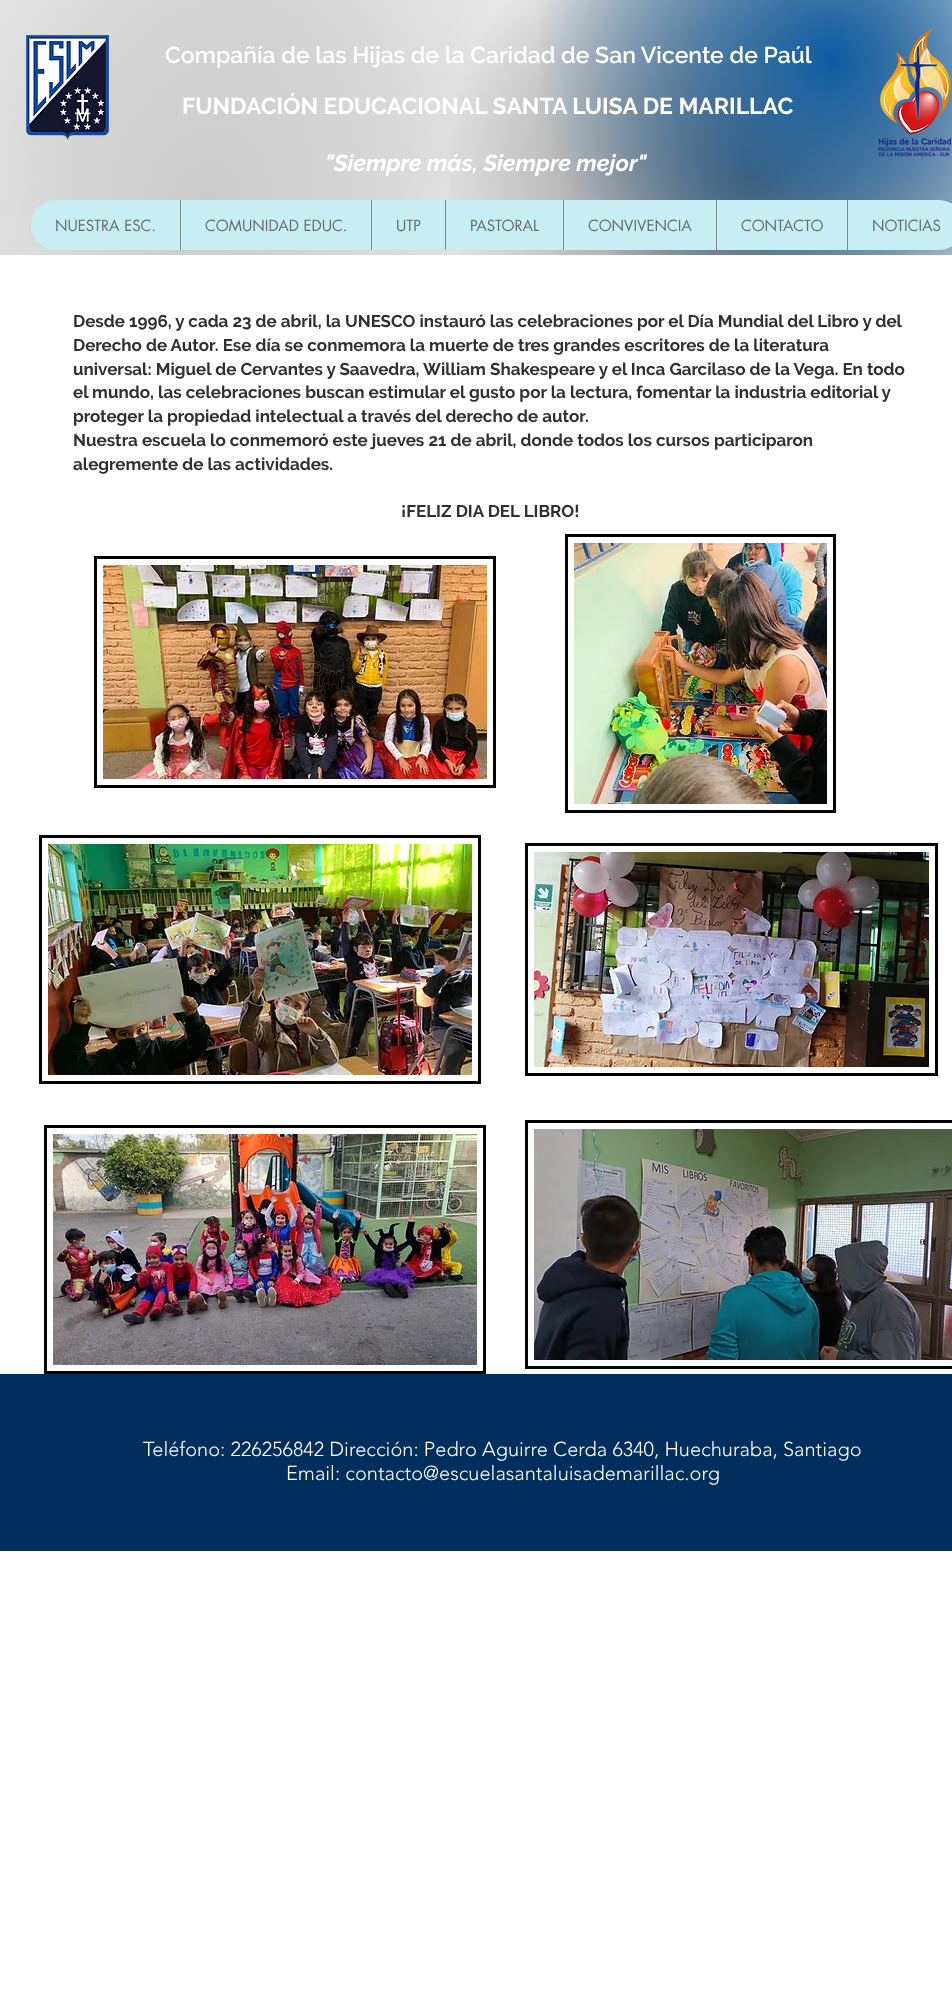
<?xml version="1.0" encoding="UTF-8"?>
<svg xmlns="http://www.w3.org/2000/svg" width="952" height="2010">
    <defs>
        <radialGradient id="g1" gradientUnits="userSpaceOnUse" cx="246" cy="52" r="761"><stop offset="0" stop-color="#DBDBDB"/><stop offset="0.7" stop-color="#FFFFFF"/></radialGradient>
        <radialGradient id="g2" gradientUnits="userSpaceOnUse" cx="206" cy="203" r="801"><stop offset="0" stop-color="#CBCBCB"/><stop offset="0.5" stop-color="#CBCBCB" stop-opacity="0"/></radialGradient>
        <radialGradient id="g3" gradientUnits="userSpaceOnUse" cx="753" cy="175" r="773"><stop offset="0" stop-color="#646464"/><stop offset="0.4" stop-color="#646464" stop-opacity="0"/></radialGradient>
        <radialGradient id="g4" gradientUnits="userSpaceOnUse" cx="832" cy="60" r="854"><stop offset="0" stop-color="#0F5CA0"/><stop offset="0.35" stop-color="#0F5CA0" stop-opacity="0"/></radialGradient>
    </defs>
    <rect width="100%" height="100%" fill="#FFFFFF"/>
    <rect x="0" y="0" width="742" height="255" fill="url(#g1)"/>
    <rect x="0" y="0" width="587" height="255" fill="url(#g2)"/>
    <rect x="451" y="0" width="501" height="255" fill="url(#g3)"/>
    <rect x="539" y="0" width="413" height="255" fill="url(#g4)"/>
    <image x="26" y="35" width="83" height="105" href="img_01.png"/>
    <text x="165" y="63" font-family="Raleway" font-size="23" font-weight="600" fill="#FFFFFF">Compañía de las Hijas de la Caridad de San Vicente de Paúl</text>
    <text x="182" y="114" font-family="Raleway" font-size="23" font-weight="700" fill="#FFFFFF">FUNDACIÓN EDUCACIONAL SANTA LUISA DE MARILLAC</text>
    <image x="878" y="28" width="73" height="129" href="img_02.png"/>
    <text x="325" y="171" font-family="Raleway" font-size="23" font-weight="700" font-style="italic" fill="#FFFFFF">"Siempre más, Siempre mejor"</text>
    <rect x="31" y="200" width="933" height="50" rx="25" fill="#C8EEF5"/>
    <text x="55" y="231" font-family="futura" font-size="15" fill="#696969">NUESTRA ESC.</text>
    <rect x="180" y="200" width="1" height="50" fill="#858585"/>
    <text x="205" y="231" font-family="futura" font-size="15" fill="#696969">COMUNIDAD EDUC.</text>
    <rect x="371" y="200" width="1" height="50" fill="#858585"/>
    <text x="396" y="231" font-family="futura" font-size="15" fill="#696969">UTP</text>
    <rect x="445" y="200" width="1" height="50" fill="#858585"/>
    <text x="470" y="231" font-family="futura" font-size="15" fill="#696969">PASTORAL</text>
    <rect x="563" y="200" width="1" height="50" fill="#858585"/>
    <text x="588" y="231" font-family="futura" font-size="15" fill="#696969">CONVIVENCIA</text>
    <rect x="716" y="200" width="1" height="50" fill="#858585"/>
    <text x="741" y="231" font-family="futura" font-size="15" fill="#696969">CONTACTO</text>
    <rect x="847" y="200" width="1" height="50" fill="#858585"/>
    <text x="872" y="231" font-family="futura" font-size="15" fill="#696969">NOTICIAS</text>
    <text font-family="Raleway" font-size="17" font-weight="700" fill="#303030">
        <tspan x="73" y="327">Desde 1996, y cada 23 de abril, la UNESCO instauró las celebraciones por el Día Mundial del Libro y del</tspan>
        <tspan x="73" y="351">Derecho de Autor. Ese día se conmemora la muerte de tres grandes escritores de la literatura</tspan>
        <tspan x="73" y="375">universal: Miguel de Cervantes y Saavedra, William Shakespeare y el Inca Garcilaso de la Vega. En todo</tspan>
        <tspan x="73" y="398">el mundo, las celebraciones buscan estimular el gusto por la lectura, fomentar la industria editorial y</tspan>
        <tspan x="73" y="422">proteger la propiedad intelectual a través del derecho de autor.</tspan>
        <tspan x="73" y="446">Nuestra escuela lo conmemoró este jueves 21 de abril, donde todos los cursos participaron</tspan>
        <tspan x="73" y="470">alegremente de las actividades.</tspan>
    </text>
    <text x="401" y="517" font-family="Raleway" font-size="17" font-weight="700" fill="#303030">¡FELIZ DIA DEL LIBRO!</text>
    <rect x="95.5" y="557.5" width="399" height="229" fill="none" stroke="#000000" stroke-width="3"/>
    <image x="103" y="565" width="384" height="214" href="img_03.png"/>
    <rect x="566.5" y="535.5" width="268" height="276" fill="none" stroke="#000000" stroke-width="3"/>
    <image x="574" y="543" width="253" height="261" href="img_04.png"/>
    <rect x="40.5" y="836.5" width="439" height="246" fill="none" stroke="#000000" stroke-width="3"/>
    <image x="48" y="844" width="424" height="231" href="img_05.png"/>
    <rect x="526.5" y="844.5" width="410" height="230" fill="none" stroke="#000000" stroke-width="3"/>
    <image x="534" y="852" width="395" height="215" href="img_06.png"/>
    <rect x="45.5" y="1126.5" width="439" height="246" fill="none" stroke="#000000" stroke-width="3"/>
    <image x="53" y="1134" width="424" height="231" href="img_07.png"/>
    <rect x="526.5" y="1121.5" width="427" height="246" fill="none" stroke="#000000" stroke-width="3"/>
    <image x="534" y="1129" width="418" height="231" href="img_08.png"/>
    <rect x="0" y="1374" width="952" height="177" fill="#002E5D"/>
    <text x="143" y="1456" font-family="'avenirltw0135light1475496'" font-size="20" font-weight="300" fill="#FFFFFF">Teléfono: 226256842 Dirección: Pedro Aguirre Cerda 6340, Huechuraba, Santiago</text>
    <text x="286" y="1480" font-family="'avenirltw0135light1475496'" font-size="20" font-weight="300" fill="#FFFFFF">Email: contacto@escuelasantaluisademarillac.org</text>
</svg>
